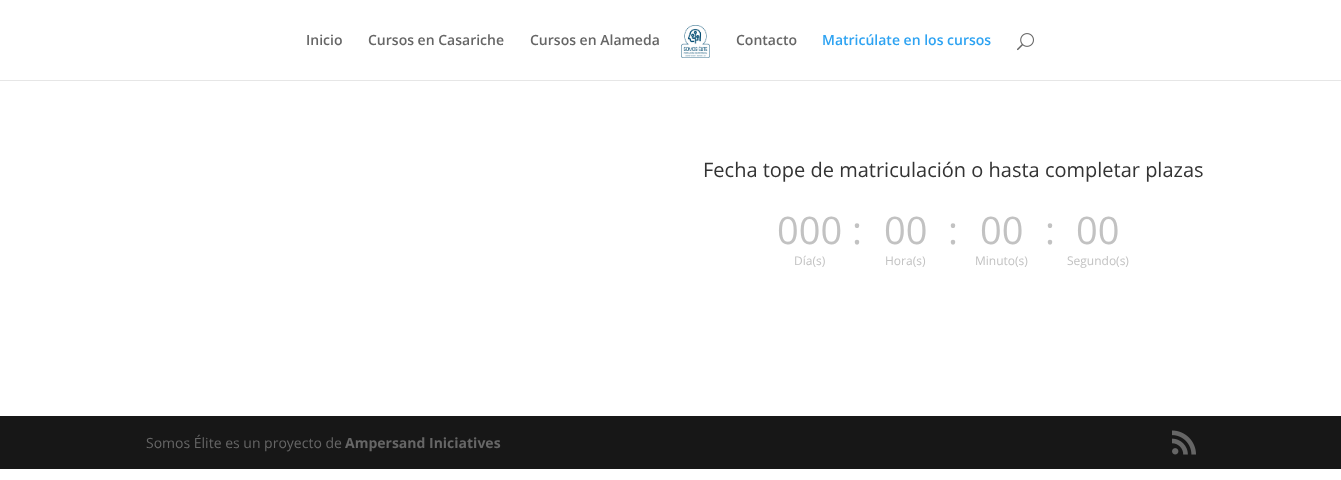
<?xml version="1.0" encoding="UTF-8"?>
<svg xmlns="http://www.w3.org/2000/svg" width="1341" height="480">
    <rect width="100%" height="100%" fill="#FFFFFF"/>
    <rect x="0" y="80" width="1341" height="1" fill="#E6E6E6"/>
    <text x="306" y="45" font-family="Open Sans" font-size="14" font-weight="600" fill="#666666">Inicio</text>
    <text x="368" y="45" font-family="Open Sans" font-size="14" font-weight="600" fill="#666666">Cursos en Casariche</text>
    <text x="530" y="45" font-family="Open Sans" font-size="14" font-weight="600" fill="#666666">Cursos en Alameda</text>
    <image x="681" y="25" width="29" height="33" href="img_01.png"/>
    <text x="736" y="45" font-family="Open Sans" font-size="14" font-weight="600" fill="#666666">Contacto</text>
    <text x="822" y="45" font-family="Open Sans" font-size="14" font-weight="600" fill="#2EA3F2">Matricúlate en los cursos</text>
    <image x="1017" y="33" width="17" height="18" href="img_02.png"/>
    <text x="703" y="177" font-family="Open Sans" font-size="20" fill="#333333">Fecha tope de matriculación o hasta completar plazas</text>
    <text x="777" y="244" font-family="Open Sans" font-size="38" fill="#C2C2C2">000</text>
    <text x="794" y="265" font-family="Open Sans" font-size="12" fill="#C2C2C2">Día(s)</text>
    <text x="852" y="244" font-family="Open Sans" font-size="38" fill="#C2C2C2">:</text>
    <text x="884" y="244" font-family="Open Sans" font-size="38" fill="#C2C2C2">00</text>
    <text x="885" y="265" font-family="Open Sans" font-size="12" fill="#C2C2C2">Hora(s)</text>
    <text x="948" y="244" font-family="Open Sans" font-size="38" fill="#C2C2C2">:</text>
    <text x="980" y="244" font-family="Open Sans" font-size="38" fill="#C2C2C2">00</text>
    <text x="975" y="265" font-family="Open Sans" font-size="12" fill="#C2C2C2">Minuto(s)</text>
    <text x="1045" y="244" font-family="Open Sans" font-size="38" fill="#C2C2C2">:</text>
    <text x="1076" y="244" font-family="Open Sans" font-size="38" fill="#C2C2C2">00</text>
    <text x="1067" y="265" font-family="Open Sans" font-size="12" fill="#C2C2C2">Segundo(s)</text>
    <rect x="0" y="416" width="1341" height="53" fill="#171717"/>
    <text x="146" y="448" font-family="Open Sans" font-size="14" fill="#666666">Somos Élite es un proyecto de</text>
    <text x="345" y="448" font-family="Open Sans" font-size="14" font-weight="700" fill="#666666">Ampersand Iniciatives</text>
    <image x="1172" y="430" width="24" height="25" href="img_03.png"/>
</svg>
